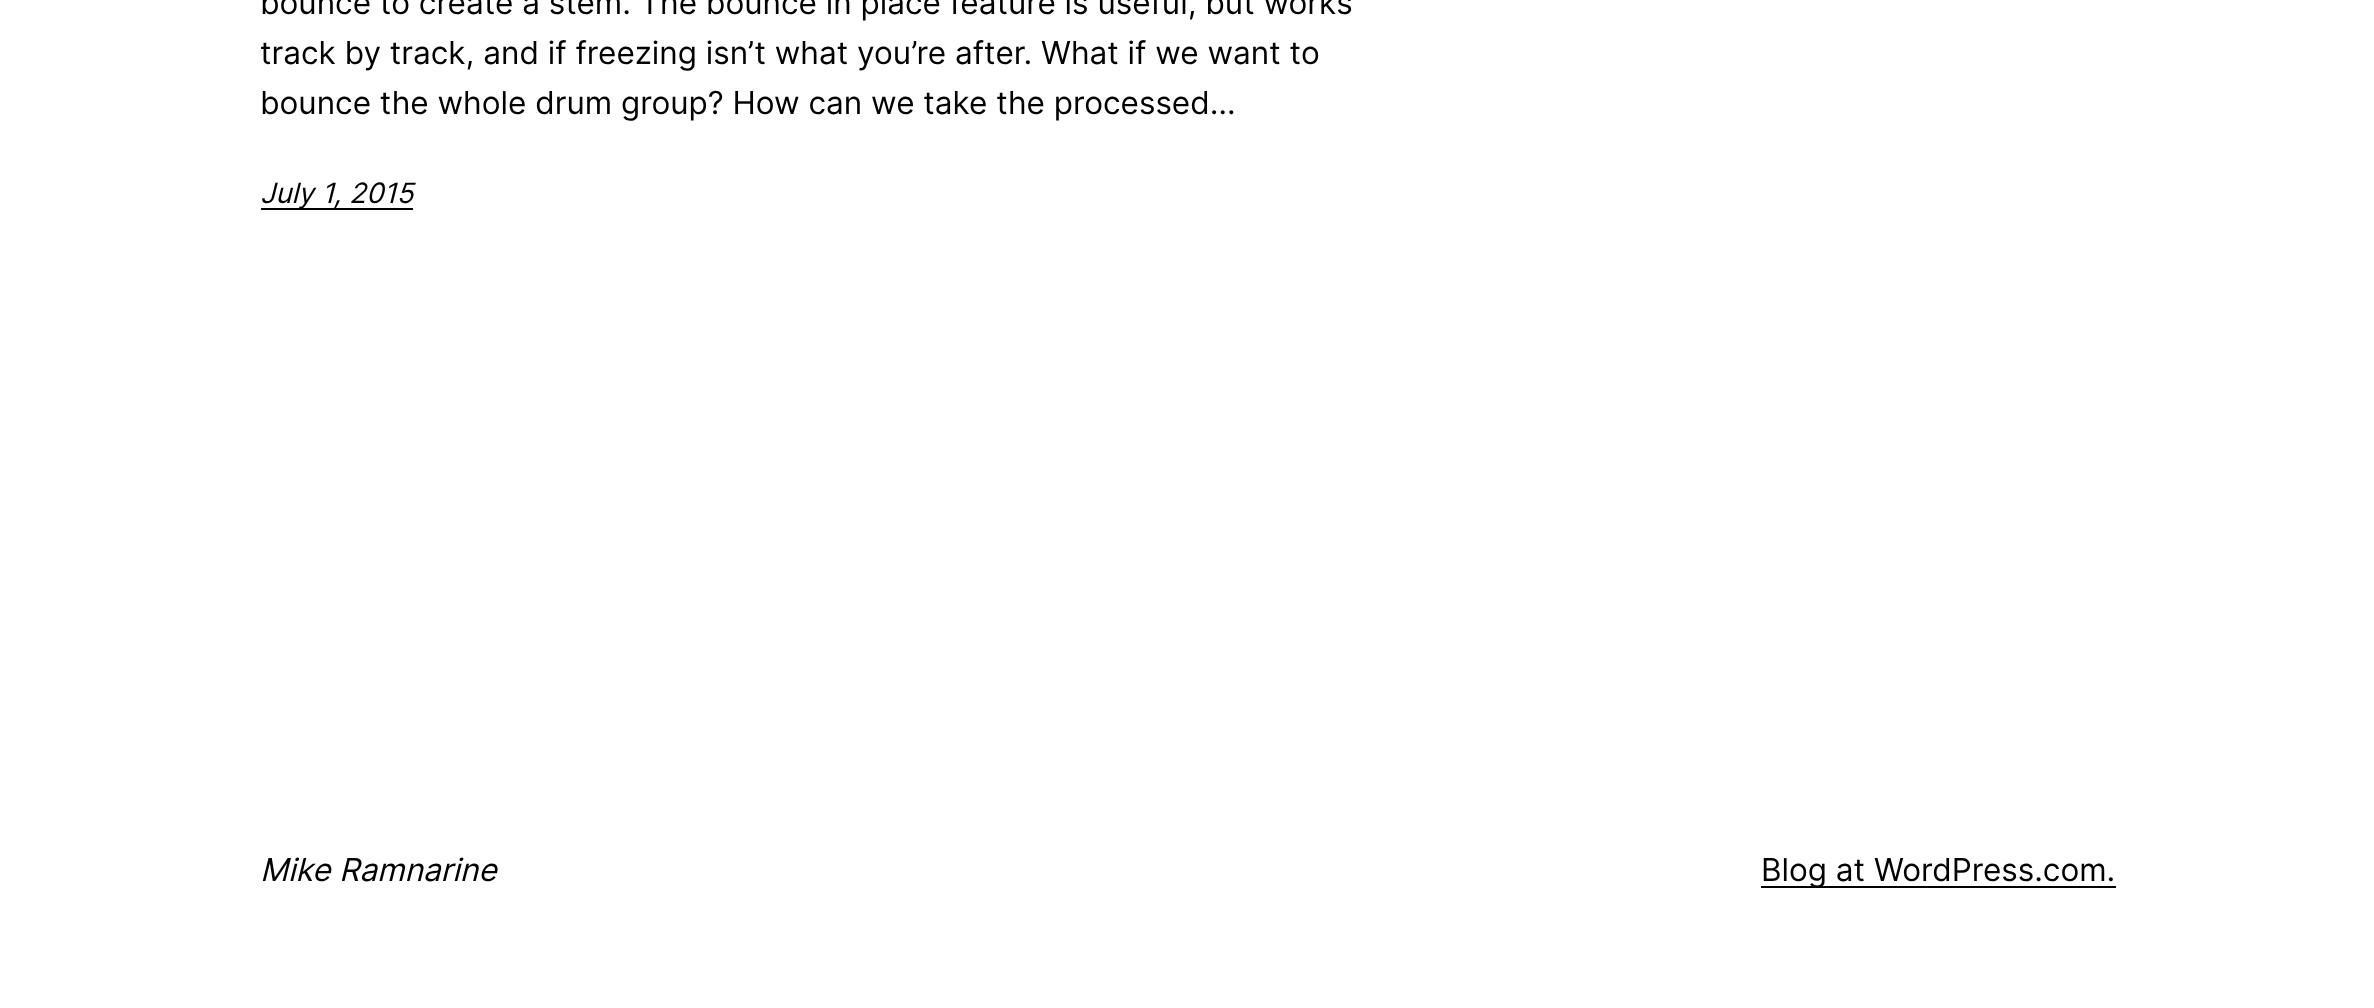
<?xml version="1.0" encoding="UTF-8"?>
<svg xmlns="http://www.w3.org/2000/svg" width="2374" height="1008">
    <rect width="100%" height="100%" fill="#FFFFFF"/>
    <text font-family="Inter" font-size="31.5" fill="#000000">
        <tspan x="260" y="14">bounce to create a stem. The bounce in place feature is useful, but works</tspan>
        <tspan x="260" y="64">track by track, and if freezing isn’t what you’re after. What if we want to</tspan>
        <tspan x="260" y="114">bounce the whole drum group? How can we take the processed…</tspan>
    </text>
    <rect x="261" y="208" width="152" height="2" fill="#000000"/>
    <text x="260" y="203" font-family="Inter" font-size="28" font-style="italic" fill="#000000">July 1, 2015</text>
    <text x="260" y="881" font-family="Inter" font-size="31.5" font-style="italic" fill="#000000">Mike Ramnarine</text>
    <rect x="1761" y="886" width="355" height="2" fill="#000000"/>
    <text x="1761" y="881" font-family="Inter" font-size="31.5" fill="#000000">Blog at WordPress.com.</text>
</svg>
